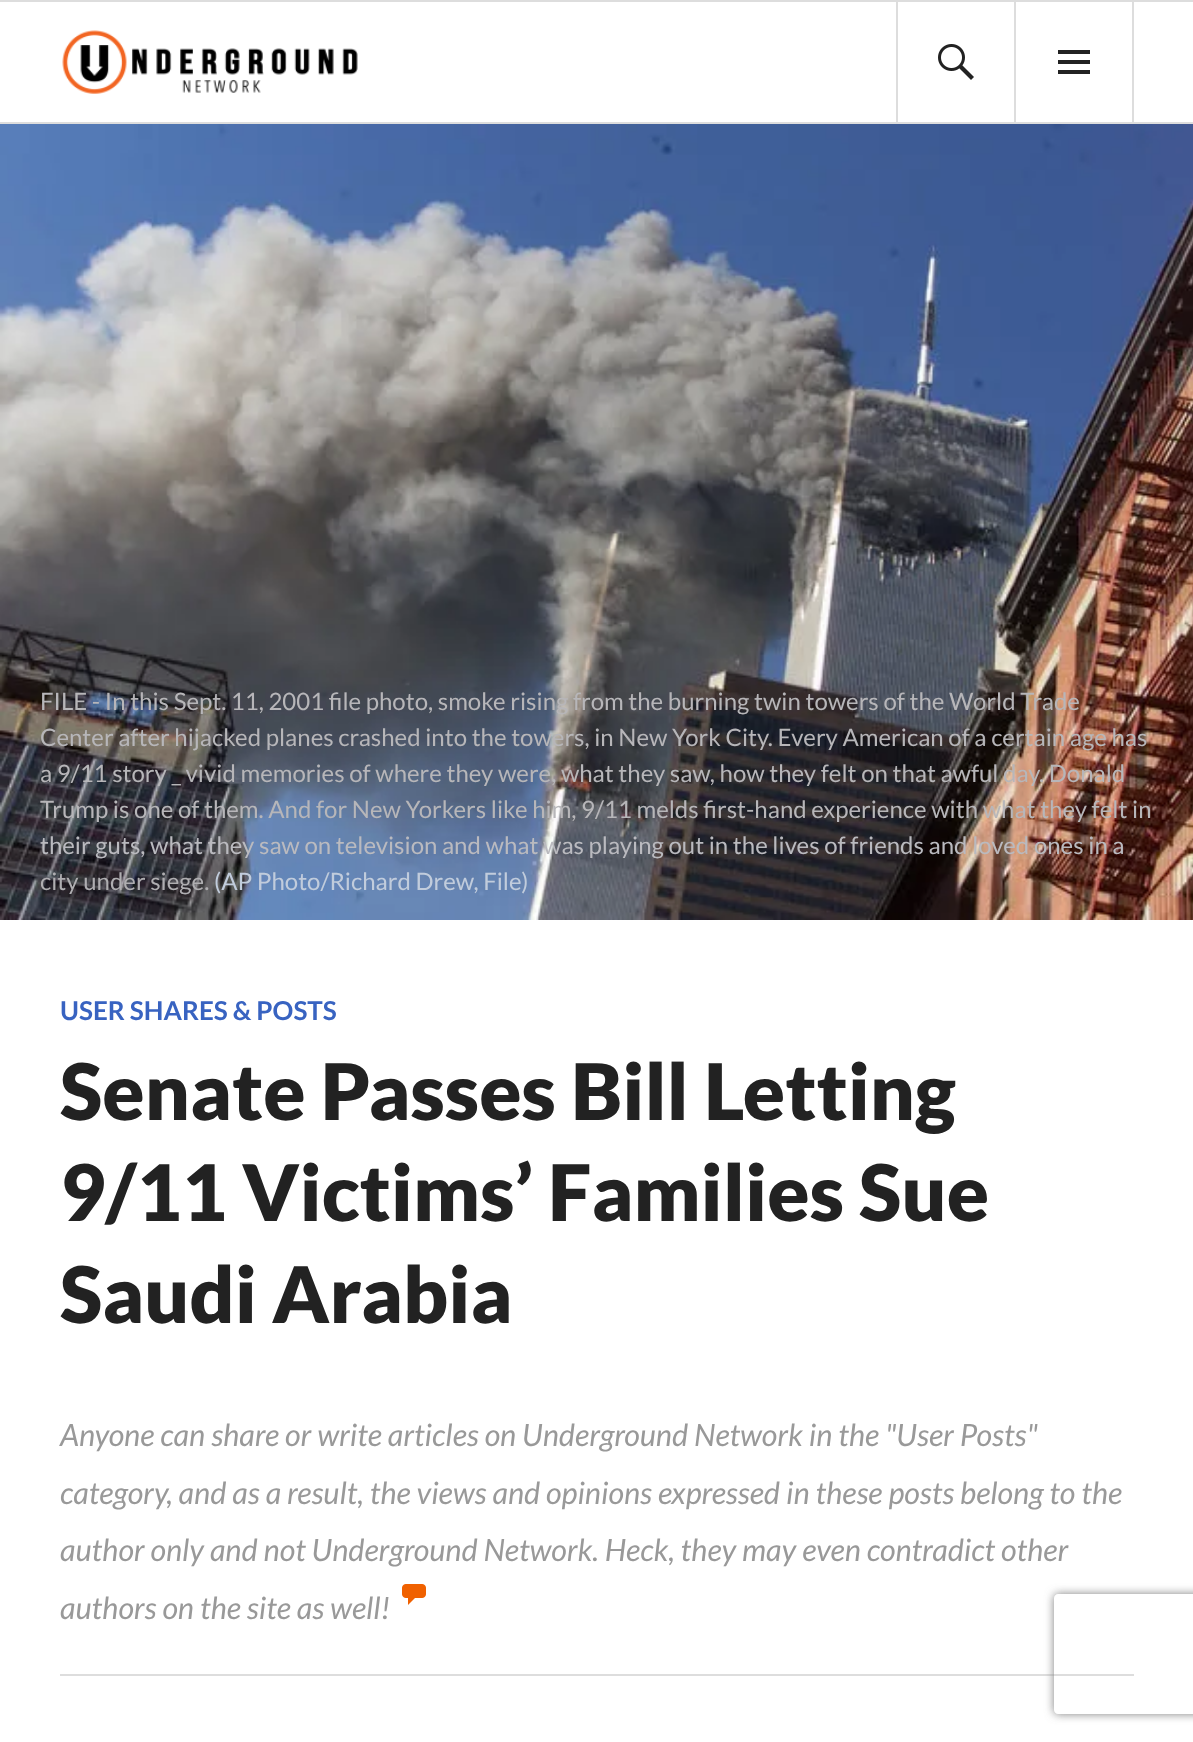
<?xml version="1.0" encoding="UTF-8"?>
<svg xmlns="http://www.w3.org/2000/svg" width="1193" height="1742">
    <defs>
        <clipPath id="clip1"><path d="M 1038 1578 H 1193 V 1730 H 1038 Z M 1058 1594 H 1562 C 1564 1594 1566 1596 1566 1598 V 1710 C 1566 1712 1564 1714 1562 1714 H 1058 C 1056 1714 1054 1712 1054 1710 V 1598 C 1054 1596 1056 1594 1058 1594 Z" clip-rule="evenodd"/></clipPath>
        <filter id="blur1" x="-50%" y="-200%" width="200%" height="500%"><feGaussianBlur stdDeviation="5"/></filter>
    </defs>
    <rect width="100%" height="100%" fill="#FFFFFF"/>
    <rect x="0" y="0" width="1193" height="2" fill="#DDDDDD"/>
    <rect x="0" y="122" width="1193" height="2" fill="#DDDDDD"/>
    <image x="62" y="30" width="296" height="64" href="img_01.png"/>
    <rect x="1015" y="1" width="118" height="122" fill="none" stroke="#DDDDDD" stroke-width="2"/>
    <rect x="897" y="1" width="118" height="122" fill="none" stroke="#DDDDDD" stroke-width="2"/>
    <image x="938" y="44" width="36" height="36" href="img_02.png"/>
    <image x="1058" y="50" width="32" height="24" href="img_03.png"/>
    <image x="0" y="124" width="1193" height="796" href="img_04.png"/>
    <text font-family="Lato" font-size="24" fill="#B7B6B9">
        <tspan x="40" y="710">FILE - In this Sept. 11, 2001 file photo, smoke rising from the burning twin towers of the World Trade</tspan>
        <tspan x="40" y="746">Center after hijacked planes crashed into the towers, in New York City. Every American of a certain age has</tspan>
        <tspan x="40" y="782">a 9/11 story _ vivid memories of where they were, what they saw, how they felt on that awful day. Donald</tspan>
        <tspan x="40" y="818">Trump is one of them. And for New Yorkers like him, 9/11 melds first-hand experience with what they felt in</tspan>
    </text>
    <text x="40" y="854" font-family="Lato" font-size="24" fill="#BABABF">their guts, what they saw on television and what was playing out in the lives of friends and loved ones in a</text>
    <text x="40" y="890" font-family="Lato" font-size="24" fill="#AFAEB1">city under siege.</text>
    <text x="214" y="890" font-family="Lato" font-size="24" fill="#C1CCDC">(AP Photo/Richard Drew, File)</text>
    <text x="60" y="1020" font-family="Lato" font-size="26" font-weight="700" fill="#3863C1">USER SHARES &amp; POSTS</text>
    <text font-family="Lato" font-size="78" font-weight="900" fill="#222222">
        <tspan x="60" y="1120">Senate Passes Bill Letting</tspan>
        <tspan x="60" y="1221">9/11 Victims’ Families Sue</tspan>
        <tspan x="60" y="1323">Saudi Arabia</tspan>
    </text>
    <rect x="60" y="1674" width="1074" height="2" fill="#DDDDDD"/>
    <text font-family="Lato" font-size="30.7" font-style="italic" fill="#999999">
        <tspan x="60" y="1446">Anyone can share or write articles on Underground Network in the "User Posts"</tspan>
        <tspan x="60" y="1504">category, and as a result, the views and opinions expressed in these posts belong to the</tspan>
        <tspan x="60" y="1561">author only and not Underground Network. Heck, they may even contradict other</tspan>
        <tspan x="60" y="1619">authors on the site as well!</tspan>
    </text>
    <image x="402" y="1584" width="24" height="21" href="img_05.png"/>
    <g clip-path="url(#clip1)">
        <rect x="1054" y="1594" width="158" height="120" rx="4" fill="#808080" filter="url(#blur1)"/>
    </g>
</svg>
